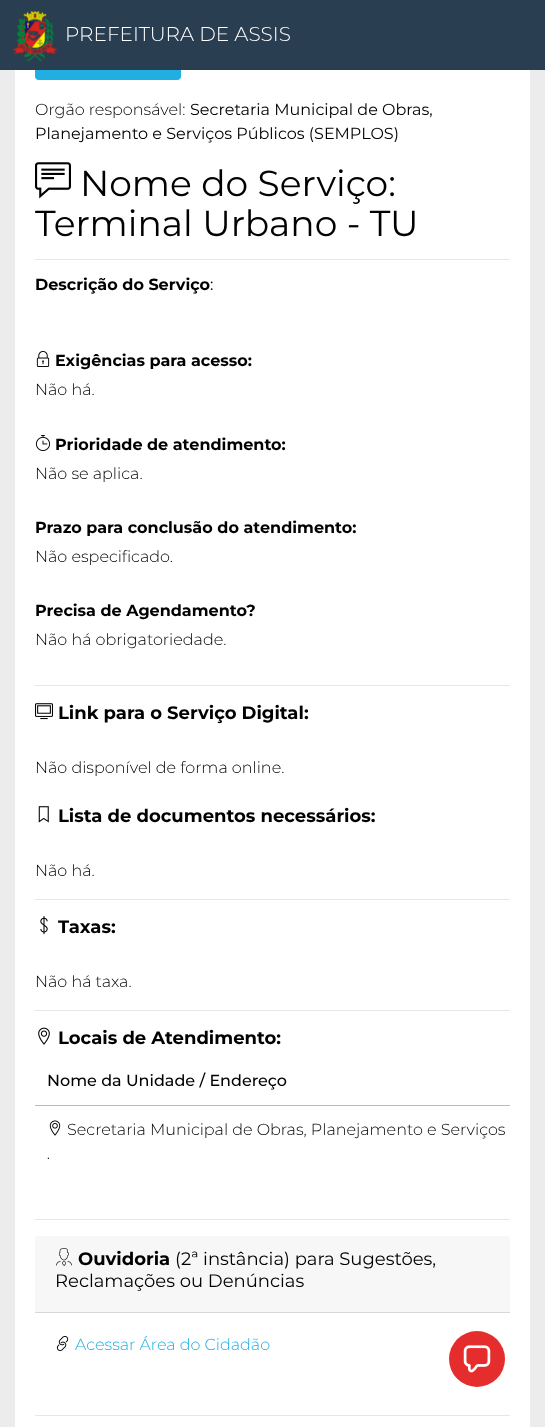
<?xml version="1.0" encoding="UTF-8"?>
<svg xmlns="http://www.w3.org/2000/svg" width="545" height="1427">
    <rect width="100%" height="100%" fill="#ECECEC"/>
    <rect x="15" y="70" width="515" height="1357" fill="#FFFFFF"/>
    <rect x="35" y="61" width="146" height="19" rx="4" fill="#20AEE3"/>
    <rect x="0" y="0" width="545" height="70" fill="#2A3E52"/>
    <image x="12" y="11" width="46" height="50" href="img_01.png"/>
    <text x="65" y="41" font-family="Montserrat" font-size="20" font-weight="300" fill="#FFFFFF">PREFEITURA DE ASSIS</text>
    <text x="35" y="115" font-family="Montserrat" font-size="16" font-weight="300" fill="#000000">Orgão responsável:</text>
    <text x="190" y="115" font-family="Montserrat" font-size="16" fill="#000000">Secretaria Municipal de Obras,</text>
    <text x="35" y="139" font-family="Montserrat" font-size="16" fill="#000000">Planejamento e Serviços Públicos (SEMPLOS)</text>
    <image x="35" y="162" width="36" height="37" href="img_02.png"/>
    <text x="80" y="196" font-family="Montserrat" font-size="36" fill="#000000">Nome do Serviço:</text>
    <text x="35" y="236" font-family="Montserrat" font-size="36" fill="#000000">Terminal Urbano - TU</text>
    <rect x="35" y="259" width="475" height="1" fill="#E6E6E6"/>
    <text x="35" y="290" font-family="Montserrat" font-size="16" font-weight="700" fill="#000000">Descrição do Serviço</text>
    <text x="210" y="290" font-family="Montserrat" font-size="16" fill="#000000">:</text>
    <image x="36" y="351" width="14" height="16" href="img_03.png"/>
    <text x="55" y="366" font-family="Montserrat" font-size="16" font-weight="700" fill="#000000">Exigências para acesso:</text>
    <text x="35" y="395" font-family="Montserrat" font-size="16" font-weight="300" fill="#000000">Não há.</text>
    <image x="35" y="435" width="16" height="16" href="img_04.png"/>
    <text x="55" y="450" font-family="Montserrat" font-size="16" font-weight="700" fill="#000000">Prioridade de atendimento:</text>
    <text x="35" y="479" font-family="Montserrat" font-size="16" font-weight="300" fill="#000000">Não se aplica.</text>
    <text x="35" y="533" font-family="Montserrat" font-size="16" font-weight="700" fill="#000000">Prazo para conclusão do atendimento:</text>
    <text x="35" y="562" font-family="Montserrat" font-size="16" font-weight="300" fill="#000000">Não especificado.</text>
    <text x="35" y="616" font-family="Montserrat" font-size="16" font-weight="700" fill="#000000">Precisa de Agendamento?</text>
    <text x="35" y="645" font-family="Montserrat" font-size="16" font-weight="300" fill="#000000">Não há obrigatoriedade.</text>
    <rect x="35" y="685" width="475" height="1" fill="#E6E6E6"/>
    <image x="35" y="703" width="18" height="17" href="img_05.png"/>
    <text x="58" y="719" font-family="Montserrat" font-size="18" font-weight="700" fill="#000000">Link para o Serviço Digital:</text>
    <text x="35" y="773" font-family="Montserrat" font-size="16" font-weight="300" fill="#000000">Não disponível de forma online.</text>
    <image x="38" y="806" width="11" height="17" href="img_06.png"/>
    <text x="58" y="822" font-family="Montserrat" font-size="18" font-weight="700" fill="#000000">Lista de documentos necessários:</text>
    <text x="35" y="876" font-family="Montserrat" font-size="16" font-weight="300" fill="#000000">Não há.</text>
    <rect x="35" y="899" width="475" height="1" fill="#E6E6E6"/>
    <image x="40" y="916" width="8" height="19" href="img_07.png"/>
    <text x="58" y="933" font-family="Montserrat" font-size="18" font-weight="700" fill="#000000">Taxas:</text>
    <text x="35" y="987" font-family="Montserrat" font-size="16" font-weight="300" fill="#000000">Não há taxa.</text>
    <rect x="35" y="1010" width="475" height="1" fill="#E6E6E6"/>
    <image x="38" y="1027" width="12" height="18" href="img_08.png"/>
    <text x="58" y="1044" font-family="Montserrat" font-size="18" font-weight="700" fill="#000000">Locais de Atendimento:</text>
    <text x="47" y="1086" font-family="Montserrat" font-size="16" font-weight="500" fill="#000000">Nome da Unidade / Endereço</text>
    <rect x="35" y="1105" width="475" height="1" fill="#CEB2B2"/>
    <image x="49" y="1120" width="12" height="16" href="img_09.png"/>
    <text x="67" y="1135" font-family="Montserrat" font-size="16" font-weight="300" fill="#000000">Secretaria Municipal de Obras, Planejamento e Serviços</text>
    <text x="47" y="1159" font-family="Montserrat" font-size="13" fill="#000000">.</text>
    <rect x="35" y="1219" width="475" height="1" fill="#E6E6E6"/>
    <path d="M 38 1236 H 507 C 508.5 1236 510 1237.5 510 1239 V 1313 H 35 V 1239 C 35 1237.5 36.5 1236 38 1236 Z" fill="#F7F7F7"/>
    <rect x="35" y="1312" width="475" height="1" fill="#D8D8D8"/>
    <image x="56" y="1248" width="16" height="19" href="img_10.png"/>
    <text x="78" y="1265" font-family="Montserrat" font-size="18" font-weight="700" fill="#000000">Ouvidoria</text>
    <text x="175" y="1265" font-family="Montserrat" font-size="18" fill="#000000">(2ª instância) para Sugestões,</text>
    <text x="55" y="1287" font-family="Montserrat" font-size="18" fill="#000000">Reclamações ou Denúncias</text>
    <image x="56" y="1335" width="13" height="16" href="img_11.png"/>
    <text x="75" y="1350" font-family="Montserrat" font-size="16" font-weight="300" fill="#20AEE3">Acessar Área do Cidadão</text>
    <rect x="35" y="1415" width="475" height="1" fill="#E6E6E6"/>
    <circle cx="477" cy="1359" r="28" fill="#E62D2D"/>
    <image x="463" y="1345" width="28" height="28" href="img_12.png"/>
</svg>
